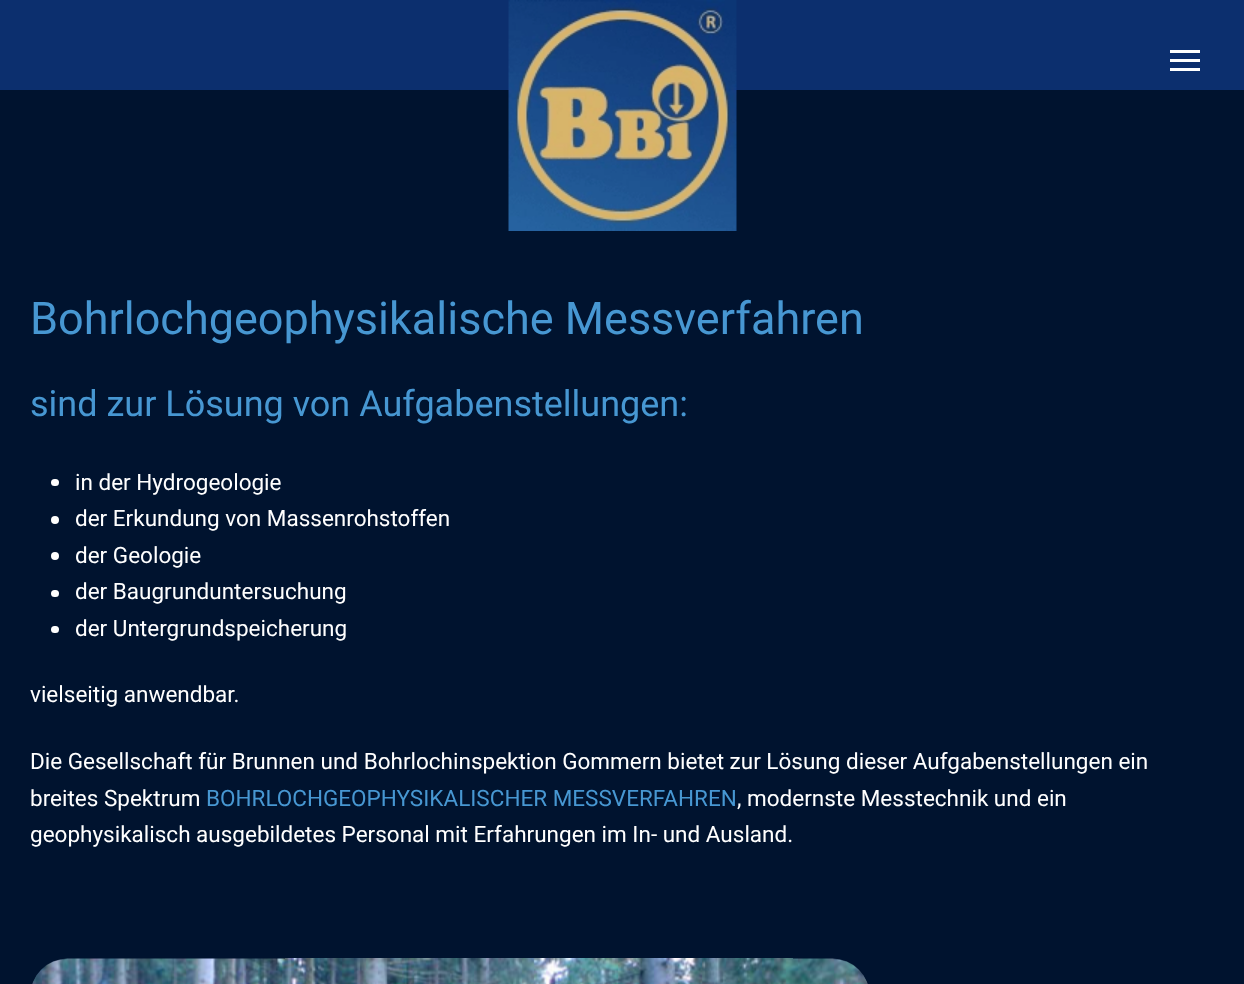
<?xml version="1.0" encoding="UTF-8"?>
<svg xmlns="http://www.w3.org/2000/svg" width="1244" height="984">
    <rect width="100%" height="100%" fill="#00132F"/>
    <rect x="0" y="0" width="1244" height="90" fill="#0C2F6E"/>
    <image x="508" y="0" width="229" height="231" href="img_01.png"/>
    <rect x="1170" y="50" width="30" height="3" fill="#FFFFFF"/>
    <rect x="1170" y="59" width="30" height="3" fill="#FFFFFF"/>
    <rect x="1170" y="68" width="30" height="3" fill="#FFFFFF"/>
    <text x="30" y="334" font-family="Roboto" font-size="45" fill="#4797D2">Bohrlochgeophysikalische Messverfahren</text>
    <text x="30" y="416" font-family="Roboto" font-size="36" fill="#4797D2">sind zur Lösung von Aufgabenstellungen:</text>
    <rect x="51" y="479" width="8" height="7" rx="3.5" fill="#FFFFFF"/>
    <text x="75" y="490" font-family="Roboto" font-size="22.5" fill="#FFFFFF">in der Hydrogeologie</text>
    <circle cx="55" cy="520" r="4" fill="#FFFFFF"/>
    <text x="75" y="526" font-family="Roboto" font-size="22.5" fill="#FFFFFF">der Erkundung von Massenrohstoffen</text>
    <circle cx="55" cy="556" r="4" fill="#FFFFFF"/>
    <text x="75" y="563" font-family="Roboto" font-size="22.5" fill="#FFFFFF">der Geologie</text>
    <rect x="51" y="590" width="8" height="7" rx="3.5" fill="#FFFFFF"/>
    <text x="75" y="599" font-family="Roboto" font-size="22.5" fill="#FFFFFF">der Baugrunduntersuchung</text>
    <rect x="51" y="626" width="8" height="7" rx="3.5" fill="#FFFFFF"/>
    <text x="75" y="636" font-family="Roboto" font-size="22.5" fill="#FFFFFF">der Untergrundspeicherung</text>
    <text x="30" y="702" font-family="Roboto" font-size="22.5" fill="#FFFFFF">vielseitig anwendbar.</text>
    <text font-family="Roboto" font-size="22.5" fill="#FFFFFF">
        <tspan x="30" y="769">Die Gesellschaft für Brunnen und Bohrlochinspektion Gommern bietet zur Lösung dieser Aufgabenstellungen ein</tspan>
        <tspan x="30" y="806">breites Spektrum</tspan>
    </text>
    <text x="206" y="806" font-family="Roboto" font-size="22.5" fill="#4797D2">BOHRLOCHGEOPHYSIKALISCHER MESSVERFAHREN</text>
    <text x="737" y="806" font-family="Roboto" font-size="22.5" fill="#FFFFFF">, modernste Messtechnik und ein</text>
    <text x="30" y="842" font-family="Roboto" font-size="22.5" fill="#FFFFFF">geophysikalisch ausgebildetes Personal mit Erfahrungen im In- und Ausland.</text>
    <image x="32" y="958" width="836" height="26" href="img_02.png"/>
</svg>
